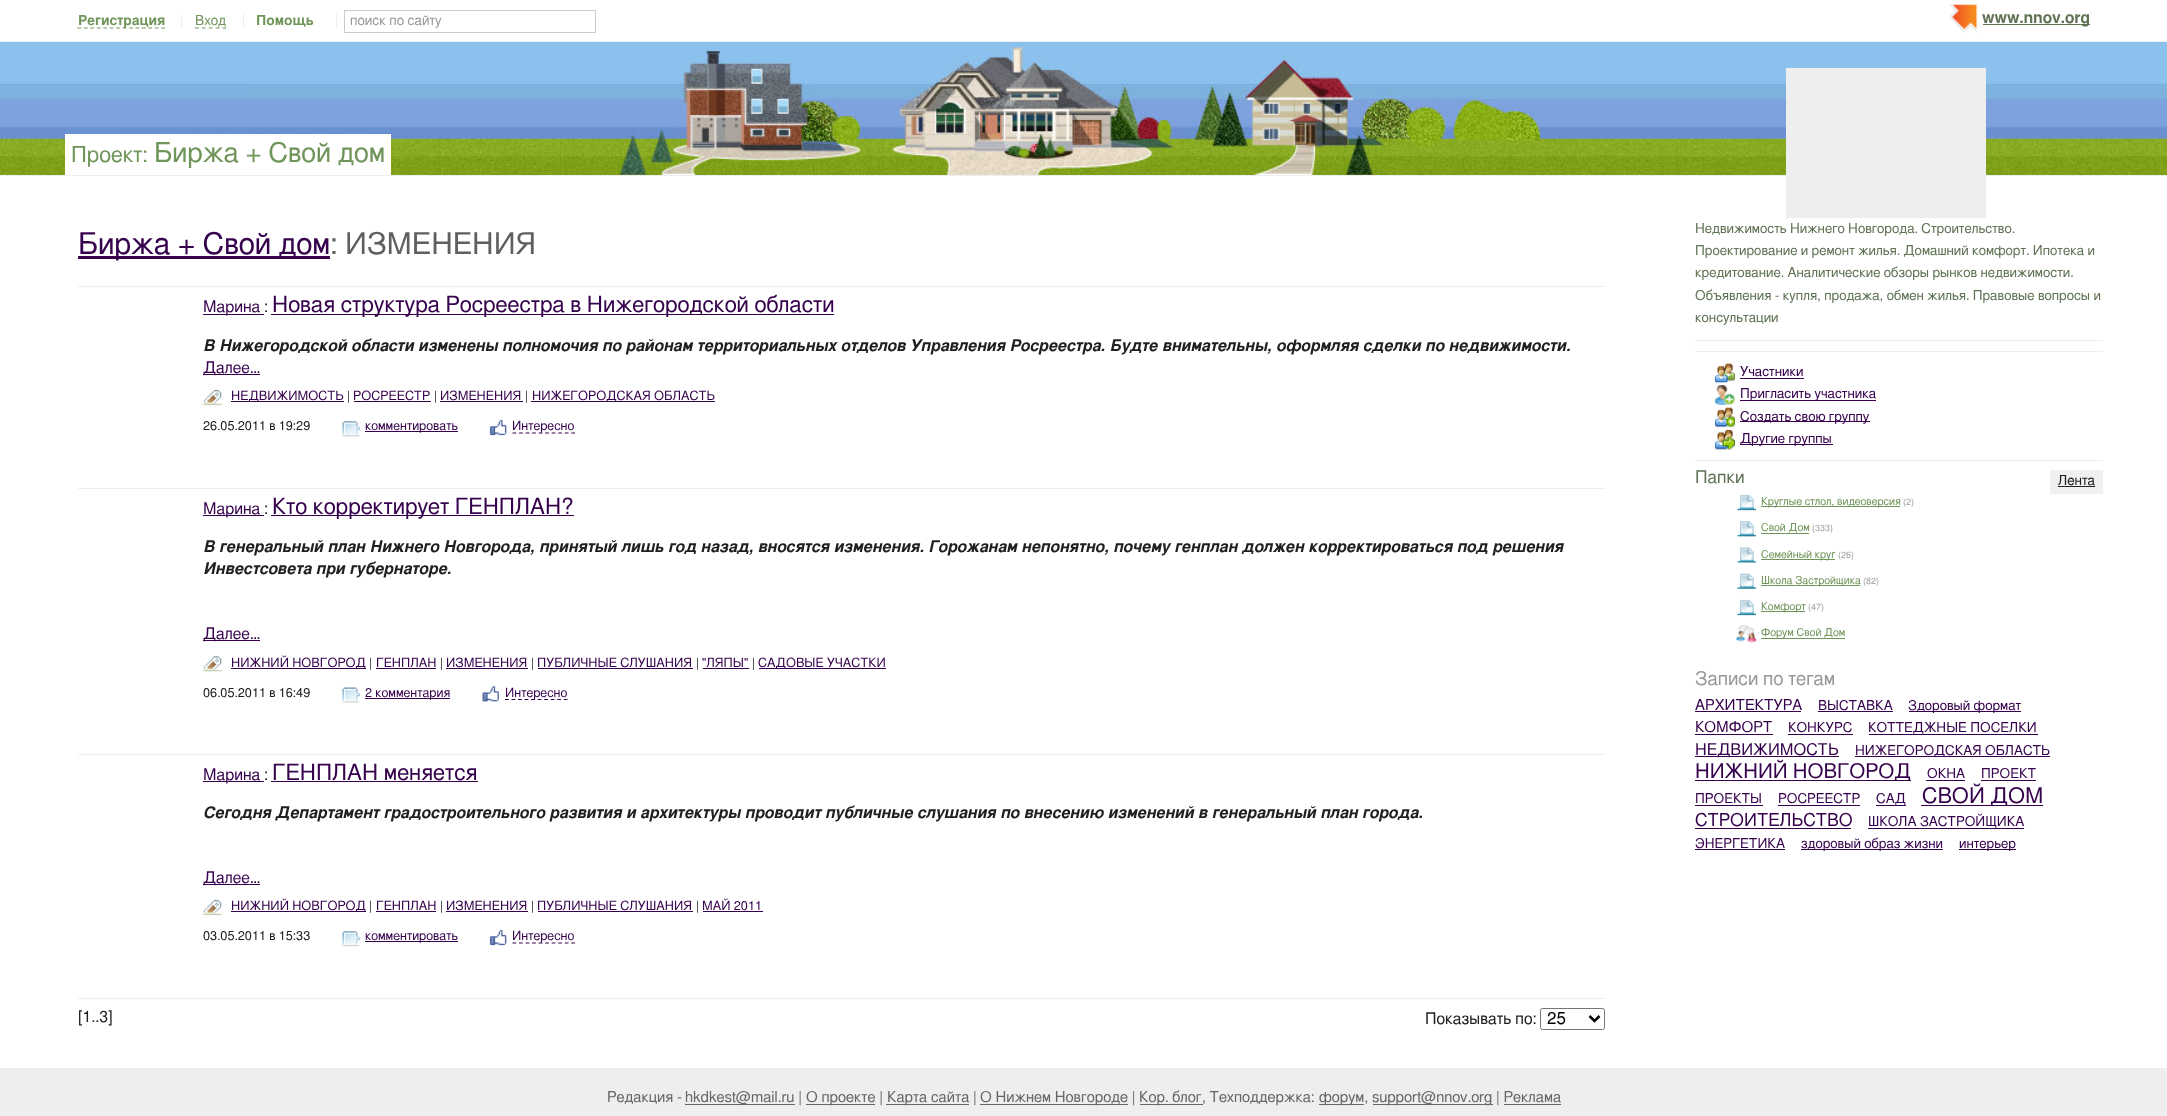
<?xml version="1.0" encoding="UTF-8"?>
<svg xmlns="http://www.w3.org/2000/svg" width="2167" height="1116">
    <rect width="100%" height="100%" fill="#FFFFFF"/>
    <rect x="0" y="175" width="2167" height="1" fill="#EEEEEE"/>
    <image x="0" y="42" width="2167" height="133" href="img_01.png"/>
    <image x="250" y="42" width="1668" height="133" href="img_02.png"/>
    <rect x="0" y="41" width="2167" height="1" fill="#EEEEEE"/>
    <path d="M 77.5 28 H 165" fill="none" stroke="#70955A" stroke-width="1.2" stroke-dasharray="3.75 2.69"/>
    <text x="78" y="25" font-family="FreeSans" font-size="13.75" font-weight="600" fill="#70955A">Регистрация</text>
    <text x="195" y="25" font-family="FreeSans" font-size="13.75" fill="#70955A">Вход</text>
    <rect x="181" y="14" width="1" height="14" fill="#EEEEEE"/>
    <path d="M 195 28 H 226" fill="none" stroke="#70955A" stroke-width="1.2" stroke-dasharray="3.75 3.12"/>
    <text x="256" y="25" font-family="FreeSans" font-size="13.75" font-weight="600" fill="#70955A">Помощь</text>
    <rect x="243" y="14" width="1" height="14" fill="#EEEEEE"/>
    <rect x="336" y="14" width="1" height="14" fill="#EEEEEE"/>
    <rect x="344.5" y="10.5" width="251" height="22" fill="none" stroke="#CCCCCC"/>
    <text x="350" y="25" font-family="FreeSans" font-size="13.75" fill="#999999">поиск по сайту</text>
    <image x="1949" y="4" width="29" height="29" href="img_03.png"/>
    <rect x="1983" y="24" width="107" height="1" fill="#607355"/>
    <text x="1982" y="23" font-family="FreeSans" font-size="16" font-weight="600" fill="#607355">www.nnov.org</text>
    <rect x="65" y="134" width="326" height="41" fill="#FFFFFF"/>
    <text x="71" y="162" font-family="FreeSans" font-size="22" fill="#70955A">Проект:</text>
    <text x="154" y="162" font-family="FreeSans" font-size="27.5" fill="#70955A">Биржа + Свой дом</text>
    <rect x="1786" y="68" width="200" height="150" fill="#EEEEEE"/>
    <rect x="78" y="256" width="252" height="3" fill="#36024D"/>
    <text x="78" y="254" font-family="FreeSans" font-size="30" fill="#36024D">Биржа + Свой дом</text>
    <text x="330" y="254" font-family="FreeSans" font-size="30" fill="#5F5F5F">: ИЗМЕНЕНИЯ</text>
    <rect x="78" y="286" width="1527" height="1" fill="#EEEEEE"/>
    <rect x="203" y="314" width="61" height="1" fill="#36024D"/>
    <text x="203" y="312" font-family="FreeSans" font-size="16" fill="#36024D">Марина</text>
    <text x="264" y="312" font-family="FreeSans" font-size="16" fill="#202020">:</text>
    <rect x="271" y="314" width="563" height="1" fill="#36024D"/>
    <text x="272" y="312" font-family="FreeSans" font-size="22.4" fill="#36024D">Новая структура Росреестра в Нижегородской области</text>
    <text x="203" y="351" font-family="FreeSans" font-size="16" font-weight="600" font-style="italic" fill="#202020">В Нижегородской области изменены полномочия по районам территориальных отделов Управления Росреестра. Будте внимательны, оформляя сделки по недвижимости.</text>
    <rect x="203" y="374" width="57" height="1" fill="#36024D"/>
    <text x="203" y="373" font-family="FreeSans" font-size="16" fill="#36024D">Далее…</text>
    <image x="202" y="389" width="21" height="17" href="img_04.png"/>
    <rect x="231" y="401" width="113" height="1" fill="#36024D"/>
    <text x="231" y="400" font-family="FreeSans" font-size="12.75" fill="#36024D">НЕДВИЖИМОСТЬ</text>
    <text x="347" y="400" font-family="FreeSans" font-size="12.75" fill="#202020">|</text>
    <text x="353" y="400" font-family="FreeSans" font-size="12.75" fill="#36024D">РОСРЕЕСТР</text>
    <rect x="354" y="401" width="77" height="1" fill="#36024D"/>
    <text x="434" y="400" font-family="FreeSans" font-size="12.75" fill="#202020">|</text>
    <text x="440" y="400" font-family="FreeSans" font-size="12.75" fill="#36024D">ИЗМЕНЕНИЯ</text>
    <rect x="440" y="401" width="83" height="1" fill="#36024D"/>
    <text x="525" y="400" font-family="FreeSans" font-size="12.75" fill="#202020">|</text>
    <rect x="531" y="401" width="184" height="1" fill="#36024D"/>
    <text x="532" y="400" font-family="FreeSans" font-size="12.75" fill="#36024D">НИЖЕГОРОДСКАЯ ОБЛАСТЬ</text>
    <text x="203" y="430" font-family="FreeSans" font-size="12.75" fill="#202020">26.05.2011 в 19:29</text>
    <image x="341" y="421" width="19" height="16" href="img_05.png"/>
    <rect x="365" y="431" width="93" height="1" fill="#36024D"/>
    <text x="365" y="430" font-family="FreeSans" font-size="12.75" fill="#36024D">комментировать</text>
    <image x="489" y="419" width="18" height="17" href="img_06.png"/>
    <path d="M 512.5 433 H 575" fill="none" stroke="#36024D" stroke-width="1.2" stroke-dasharray="3.75 2.78"/>
    <text x="512" y="430" font-family="FreeSans" font-size="12.75" fill="#36024D">Интересно</text>
    <rect x="78" y="488" width="1527" height="1" fill="#EEEEEE"/>
    <rect x="203" y="515" width="61" height="1" fill="#36024D"/>
    <text x="203" y="514" font-family="FreeSans" font-size="16" fill="#36024D">Марина</text>
    <text x="264" y="514" font-family="FreeSans" font-size="16" fill="#202020">:</text>
    <rect x="271" y="515" width="303" height="1" fill="#36024D"/>
    <text x="272" y="514" font-family="FreeSans" font-size="22.4" fill="#36024D">Кто корректирует ГЕНПЛАН?</text>
    <text font-family="FreeSans" font-size="16" font-weight="600" font-style="italic" fill="#202020">
        <tspan x="203" y="552">В генеральный план Нижнего Новгорода, принятый лишь год назад, вносятся изменения. Горожанам непонятно, почему генплан должен корректироваться под решения</tspan>
        <tspan x="203" y="574">Инвестсовета при губернаторе.</tspan>
    </text>
    <rect x="203" y="640" width="57" height="1" fill="#36024D"/>
    <text x="203" y="639" font-family="FreeSans" font-size="16" fill="#36024D">Далее…</text>
    <image x="202" y="656" width="21" height="16" href="img_07.png"/>
    <rect x="231" y="668" width="135" height="1" fill="#36024D"/>
    <text x="231" y="667" font-family="FreeSans" font-size="12.75" fill="#36024D">НИЖНИЙ НОВГОРОД</text>
    <text x="369" y="667" font-family="FreeSans" font-size="12.75" fill="#202020">|</text>
    <text x="376" y="667" font-family="FreeSans" font-size="12.75" fill="#36024D">ГЕНПЛАН</text>
    <rect x="376" y="668" width="60" height="1" fill="#36024D"/>
    <text x="440" y="667" font-family="FreeSans" font-size="12.75" fill="#202020">|</text>
    <text x="446" y="667" font-family="FreeSans" font-size="12.75" fill="#36024D">ИЗМЕНЕНИЯ</text>
    <rect x="446" y="668" width="82" height="1" fill="#36024D"/>
    <text x="531" y="667" font-family="FreeSans" font-size="12.75" fill="#202020">|</text>
    <text x="537" y="667" font-family="FreeSans" font-size="12.75" fill="#36024D">ПУБЛИЧНЫЕ СЛУШАНИЯ</text>
    <rect x="538" y="668" width="155" height="1" fill="#36024D"/>
    <text x="696" y="667" font-family="FreeSans" font-size="12.75" fill="#202020">|</text>
    <text x="702" y="667" font-family="FreeSans" font-size="12.75" fill="#36024D">"ЛЯПЫ"</text>
    <rect x="703" y="668" width="46" height="1" fill="#36024D"/>
    <text x="752" y="667" font-family="FreeSans" font-size="12.75" fill="#202020">|</text>
    <rect x="759" y="668" width="127" height="1" fill="#36024D"/>
    <text x="758" y="667" font-family="FreeSans" font-size="12.75" fill="#36024D">САДОВЫЕ УЧАСТКИ</text>
    <text x="203" y="697" font-family="FreeSans" font-size="12.75" fill="#202020">06.05.2011 в 16:49</text>
    <image x="341" y="687" width="19" height="16" href="img_08.png"/>
    <rect x="365" y="698" width="85" height="1" fill="#36024D"/>
    <text x="365" y="697" font-family="FreeSans" font-size="12.75" fill="#36024D">2 комментария</text>
    <image x="482" y="686" width="17" height="16" href="img_09.png"/>
    <path d="M 505 699.5 H 567.5" fill="none" stroke="#36024D" stroke-width="1.2" stroke-dasharray="3.75 2.78"/>
    <text x="505" y="697" font-family="FreeSans" font-size="12.75" fill="#36024D">Интересно</text>
    <rect x="78" y="754" width="1527" height="1" fill="#EEEEEE"/>
    <rect x="203" y="781" width="61" height="1" fill="#36024D"/>
    <text x="203" y="780" font-family="FreeSans" font-size="16" fill="#36024D">Марина</text>
    <text x="264" y="780" font-family="FreeSans" font-size="16" fill="#202020">:</text>
    <text x="272" y="780" font-family="FreeSans" font-size="22.4" fill="#36024D">ГЕНПЛАН меняется</text>
    <rect x="271" y="781" width="207" height="1" fill="#36024D"/>
    <text x="203" y="818" font-family="FreeSans" font-size="16" font-weight="600" font-style="italic" fill="#202020">Сегодня Департамент градостроительного развития и архитектуры проводит публичные слушания по внесению изменений в генеральный план города.</text>
    <rect x="203" y="884" width="57" height="1" fill="#36024D"/>
    <text x="203" y="883" font-family="FreeSans" font-size="16" fill="#36024D">Далее…</text>
    <image x="202" y="899" width="21" height="17" href="img_04.png"/>
    <rect x="231" y="911" width="135" height="1" fill="#36024D"/>
    <text x="231" y="910" font-family="FreeSans" font-size="12.75" fill="#36024D">НИЖНИЙ НОВГОРОД</text>
    <text x="369" y="910" font-family="FreeSans" font-size="12.75" fill="#202020">|</text>
    <text x="376" y="910" font-family="FreeSans" font-size="12.75" fill="#36024D">ГЕНПЛАН</text>
    <rect x="376" y="911" width="60" height="1" fill="#36024D"/>
    <text x="440" y="910" font-family="FreeSans" font-size="12.75" fill="#202020">|</text>
    <text x="446" y="910" font-family="FreeSans" font-size="12.75" fill="#36024D">ИЗМЕНЕНИЯ</text>
    <rect x="446" y="911" width="82" height="1" fill="#36024D"/>
    <text x="531" y="910" font-family="FreeSans" font-size="12.75" fill="#202020">|</text>
    <text x="537" y="910" font-family="FreeSans" font-size="12.75" fill="#36024D">ПУБЛИЧНЫЕ СЛУШАНИЯ</text>
    <rect x="538" y="911" width="155" height="1" fill="#36024D"/>
    <text x="696" y="910" font-family="FreeSans" font-size="12.75" fill="#202020">|</text>
    <text x="702" y="910" font-family="FreeSans" font-size="12.75" fill="#36024D">МАЙ 2011</text>
    <rect x="703" y="911" width="60" height="1" fill="#36024D"/>
    <text x="203" y="940" font-family="FreeSans" font-size="12.75" fill="#202020">03.05.2011 в 15:33</text>
    <image x="341" y="931" width="19" height="16" href="img_05.png"/>
    <rect x="365" y="941" width="93" height="1" fill="#36024D"/>
    <text x="365" y="940" font-family="FreeSans" font-size="12.75" fill="#36024D">комментировать</text>
    <image x="489" y="929" width="18" height="17" href="img_06.png"/>
    <path d="M 512.5 943 H 575" fill="none" stroke="#36024D" stroke-width="1.2" stroke-dasharray="3.75 2.78"/>
    <text x="512" y="940" font-family="FreeSans" font-size="12.75" fill="#36024D">Интересно</text>
    <rect x="78" y="998" width="1527" height="1" fill="#EEEEEE"/>
    <text x="78" y="1022" font-family="FreeSans" font-size="16" fill="#202020">[1..3]</text>
    <text x="1425" y="1024" font-family="FreeSans" font-size="16" fill="#202020">Показывать по:</text>
    <rect x="1540.5" y="1008.5" width="64" height="21" rx="2" fill="none" stroke="#767676"/>
    <path d="M 1589.5 1016 L 1594.5 1021 L 1599.5 1016" fill="none" stroke="#000000" stroke-width="2.5"/>
    <text x="1547" y="1024" font-family="FreeSans" font-size="17" fill="#000000">25</text>
    <text font-family="FreeSans" font-size="13.6" fill="#607355">
        <tspan x="1695" y="233">Недвижимость Нижнего Новгорода. Строительство.</tspan>
        <tspan x="1695" y="255">Проектирование и ремонт жилья. Домашний комфорт. Ипотека и</tspan>
        <tspan x="1695" y="277">кредитование. Аналитические обзоры рынков недвижимости.</tspan>
        <tspan x="1695" y="300">Объявления - купля, продажа, обмен жилья. Правовые вопросы и</tspan>
        <tspan x="1695" y="322">консультации</tspan>
    </text>
    <rect x="1695" y="340" width="408" height="1" fill="#EEEEEE"/>
    <rect x="1695" y="351" width="408" height="1" fill="#EEEEEE"/>
    <image x="1715" y="363" width="20" height="20" href="img_10.png"/>
    <text x="1740" y="376" font-family="FreeSans" font-size="13.6" fill="#36024D">Участники</text>
    <rect x="1740" y="378" width="64" height="1" fill="#36024D"/>
    <image x="1715" y="385" width="20" height="20" href="img_11.png"/>
    <rect x="1740" y="400" width="136" height="1" fill="#36024D"/>
    <text x="1740" y="398" font-family="FreeSans" font-size="13.6" fill="#36024D">Пригласить участника</text>
    <image x="1715" y="407" width="20" height="21" href="img_12.png"/>
    <rect x="1740" y="421" width="130" height="1" fill="#36024D"/>
    <text x="1740" y="421" font-family="FreeSans" font-size="13.6" fill="#36024D">Создать свою группу</text>
    <image x="1715" y="430" width="20" height="20" href="img_13.png"/>
    <rect x="1740" y="444" width="93" height="1" fill="#36024D"/>
    <text x="1740" y="443" font-family="FreeSans" font-size="13.6" fill="#36024D">Другие группы</text>
    <rect x="1695" y="460" width="408" height="1" fill="#EEEEEE"/>
    <text x="1695" y="483" font-family="FreeSans" font-size="17.5" fill="#607355">Папки</text>
    <rect x="2050" y="470" width="53" height="24" fill="#F0F0F0"/>
    <text x="2058" y="485" font-family="FreeSans" font-size="13.75" fill="#202020">Лента</text>
    <rect x="2058" y="486" width="37" height="1" fill="#222222"/>
    <image x="1737" y="494" width="20" height="17" href="img_14.png"/>
    <rect x="1761" y="506" width="139" height="1" fill="#70955A"/>
    <text x="1761" y="505" font-family="FreeSans" font-size="10.9" fill="#70955A">Круглые стлол, видеоверсия</text>
    <text x="1903" y="505" font-family="FreeSans" font-size="9" fill="#999999">(2)</text>
    <image x="1737" y="521" width="20" height="16" href="img_15.png"/>
    <text x="1761" y="531" font-family="FreeSans" font-size="10.9" fill="#70955A">Свой Дом</text>
    <rect x="1761" y="533" width="48" height="1" fill="#70955A"/>
    <text x="1812" y="531" font-family="FreeSans" font-size="9" fill="#999999">(333)</text>
    <image x="1737" y="547" width="20" height="16" href="img_16.png"/>
    <rect x="1761" y="559" width="74" height="1" fill="#70955A"/>
    <text x="1761" y="558" font-family="FreeSans" font-size="10.9" fill="#70955A">Семейный круг</text>
    <text x="1838" y="558" font-family="FreeSans" font-size="9" fill="#999999">(26)</text>
    <image x="1737" y="573" width="20" height="16" href="img_17.png"/>
    <rect x="1761" y="585" width="99" height="1" fill="#70955A"/>
    <text x="1761" y="584" font-family="FreeSans" font-size="10.9" fill="#70955A">Школа Застройщика</text>
    <text x="1863" y="584" font-family="FreeSans" font-size="9" fill="#999999">(82)</text>
    <image x="1737" y="599" width="20" height="17" href="img_14.png"/>
    <rect x="1761" y="611" width="44" height="1" fill="#70955A"/>
    <text x="1761" y="610" font-family="FreeSans" font-size="10.9" fill="#70955A">Комфорт</text>
    <text x="1808" y="610" font-family="FreeSans" font-size="9" fill="#999999">(47)</text>
    <image x="1736" y="625" width="21" height="18" href="img_18.png"/>
    <rect x="1761" y="638" width="84" height="1" fill="#70955A"/>
    <text x="1761" y="636" font-family="FreeSans" font-size="10.9" fill="#70955A">Форум Свой Дом</text>
    <text x="1695" y="685" font-family="FreeSans" font-size="19" fill="#999999">Записи по тегам</text>
    <text x="1695" y="710" font-family="FreeSans" font-size="15" fill="#36024D">АРХИТЕКТУРА</text>
    <rect x="1695" y="711" width="106" height="1" fill="#36024D"/>
    <text x="1818" y="710" font-family="FreeSans" font-size="13.6" fill="#36024D">ВЫСТАВКА</text>
    <rect x="1818" y="711" width="75" height="1" fill="#36024D"/>
    <rect x="1909" y="711" width="112" height="1" fill="#36024D"/>
    <text x="1908" y="710" font-family="FreeSans" font-size="13.6" fill="#36024D">Здоровый формат</text>
    <text x="1695" y="732" font-family="FreeSans" font-size="15" fill="#36024D">КОМФОРТ</text>
    <rect x="1695" y="734" width="78" height="1" fill="#36024D"/>
    <text x="1788" y="732" font-family="FreeSans" font-size="13.6" fill="#36024D">КОНКУРС</text>
    <rect x="1788" y="734" width="65" height="1" fill="#36024D"/>
    <text x="1868" y="732" font-family="FreeSans" font-size="13.6" fill="#36024D">КОТТЕДЖНЫЕ ПОСЕЛКИ</text>
    <rect x="1869" y="734" width="169" height="1" fill="#36024D"/>
    <rect x="1695" y="756" width="144" height="1" fill="#36024D"/>
    <text x="1695" y="755" font-family="FreeSans" font-size="16.25" fill="#36024D">НЕДВИЖИМОСТЬ</text>
    <rect x="1855" y="756" width="195" height="1" fill="#36024D"/>
    <text x="1855" y="755" font-family="FreeSans" font-size="13.6" fill="#36024D">НИЖЕГОРОДСКАЯ ОБЛАСТЬ</text>
    <rect x="1695" y="780" width="216" height="1" fill="#36024D"/>
    <text x="1695" y="778" font-family="FreeSans" font-size="20.4" fill="#36024D">НИЖНИЙ НОВГОРОД</text>
    <text x="1927" y="778" font-family="FreeSans" font-size="13.6" fill="#36024D">ОКНА</text>
    <rect x="1926" y="780" width="39" height="1" fill="#36024D"/>
    <text x="1981" y="778" font-family="FreeSans" font-size="13.6" fill="#36024D">ПРОЕКТ</text>
    <rect x="1981" y="780" width="55" height="1" fill="#36024D"/>
    <text x="1695" y="803" font-family="FreeSans" font-size="13.6" fill="#36024D">ПРОЕКТЫ</text>
    <rect x="1695" y="805" width="68" height="1" fill="#36024D"/>
    <text x="1778" y="803" font-family="FreeSans" font-size="13.6" fill="#36024D">РОСРЕЕСТР</text>
    <rect x="1778" y="805" width="82" height="1" fill="#36024D"/>
    <text x="1876" y="803" font-family="FreeSans" font-size="13.6" fill="#36024D">САД</text>
    <rect x="1876" y="805" width="30" height="1" fill="#36024D"/>
    <rect x="1921" y="805" width="122" height="1" fill="#36024D"/>
    <text x="1922" y="803" font-family="FreeSans" font-size="21.75" fill="#36024D">СВОЙ ДОМ</text>
    <text x="1695" y="826" font-family="FreeSans" font-size="17.75" fill="#36024D">СТРОИТЕЛЬСТВО</text>
    <rect x="1695" y="828" width="156" height="1" fill="#36024D"/>
    <text x="1868" y="826" font-family="FreeSans" font-size="13.6" fill="#36024D">ШКОЛА ЗАСТРОЙЩИКА</text>
    <rect x="1868" y="828" width="156" height="1" fill="#36024D"/>
    <text x="1695" y="848" font-family="FreeSans" font-size="13.6" fill="#36024D">ЭНЕРГЕТИКА</text>
    <rect x="1695" y="849" width="90" height="1" fill="#36024D"/>
    <rect x="1801" y="849" width="142" height="1" fill="#36024D"/>
    <text x="1801" y="848" font-family="FreeSans" font-size="13.6" fill="#36024D">здоровый образ жизни</text>
    <rect x="1959" y="849" width="57" height="1" fill="#36024D"/>
    <text x="1959" y="848" font-family="FreeSans" font-size="13.6" fill="#36024D">интерьер</text>
    <rect x="0" y="1068" width="2167" height="48" fill="#EEEEEE"/>
    <text x="607" y="1102" font-family="FreeSans" font-size="15" fill="#666666">Редакция -</text>
    <rect x="685" y="1104" width="110" height="1" fill="#666666"/>
    <text x="685" y="1102" font-family="FreeSans" font-size="15" fill="#666666">hkdkest@mail.ru |</text>
    <rect x="806" y="1104" width="69" height="1" fill="#666666"/>
    <text x="806" y="1102" font-family="FreeSans" font-size="15" fill="#666666">О проекте |</text>
    <rect x="886" y="1104" width="83" height="1" fill="#666666"/>
    <text x="887" y="1102" font-family="FreeSans" font-size="15" fill="#666666">Карта сайта |</text>
    <rect x="980" y="1104" width="148" height="1" fill="#666666"/>
    <text x="980" y="1102" font-family="FreeSans" font-size="15" fill="#666666">О Нижнем Новгороде |</text>
    <rect x="1140" y="1104" width="63" height="1" fill="#666666"/>
    <text x="1139" y="1102" font-family="FreeSans" font-size="15" fill="#666666">Кор. блог, Техподдержка:</text>
    <rect x="1319" y="1104" width="45" height="1" fill="#666666"/>
    <text x="1319" y="1102" font-family="FreeSans" font-size="15" fill="#666666">форум,</text>
    <rect x="1373" y="1104" width="120" height="1" fill="#666666"/>
    <text x="1372" y="1102" font-family="FreeSans" font-size="15" fill="#666666">support@nnov.org | Реклама</text>
    <rect x="1504" y="1104" width="57" height="1" fill="#666666"/>
</svg>
